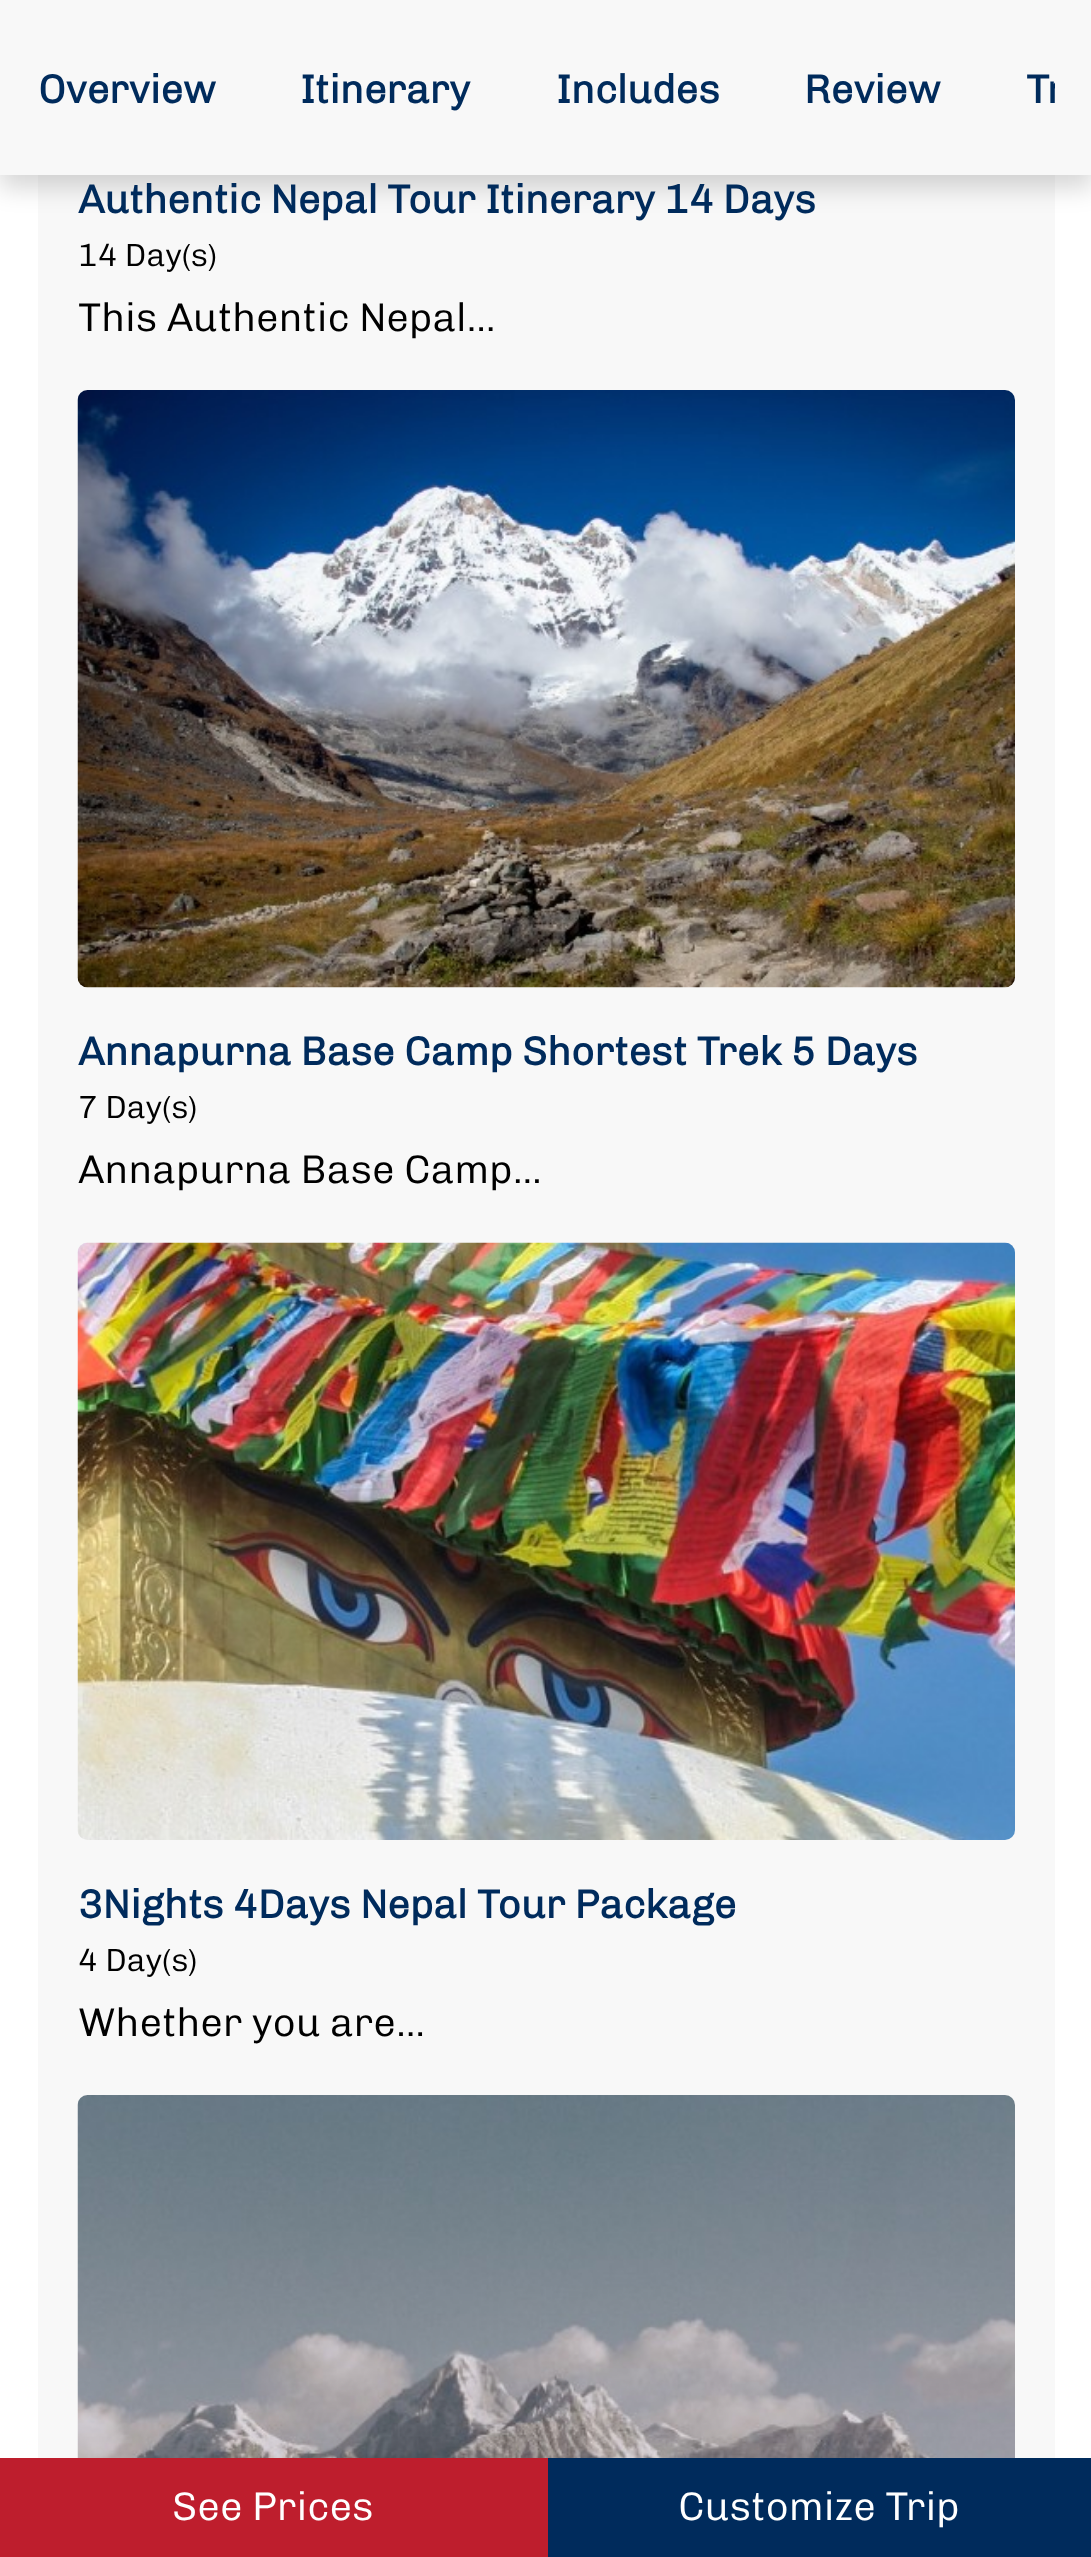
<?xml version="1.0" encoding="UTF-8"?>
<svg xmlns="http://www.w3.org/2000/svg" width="1091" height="2557">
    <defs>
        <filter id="blur1" x="-50%" y="-200%" width="200%" height="500%"><feGaussianBlur stdDeviation="12"/></filter>
        <clipPath id="clip1"><rect x="38" y="0" width="1017" height="180"/></clipPath>
    </defs>
    <rect width="100%" height="100%" fill="#FFFFFF"/>
    <rect x="38" y="175" width="1017" height="2283" fill="#F8F8F8"/>
    <rect x="0" y="13" width="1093" height="175" fill="#000000" fill-opacity="0.16" filter="url(#blur1)"/>
    <rect x="0" y="0" width="1091" height="175" fill="#F8F8F8"/>
    <text x="38" y="103" font-family="Chivo" font-size="40" font-weight="700" fill="#002B5C">Overview</text>
    <text x="300" y="103" font-family="Chivo" font-size="40" font-weight="700" fill="#002B5C">Itinerary</text>
    <text x="556" y="103" font-family="Chivo" font-size="40" font-weight="700" fill="#002B5C">Includes</text>
    <text x="804" y="103" font-family="Chivo" font-size="40" font-weight="700" fill="#002B5C">Review</text>
    <g clip-path="url(#clip1)">
        <text x="1026" y="103" font-family="Chivo" font-size="40" font-weight="700" fill="#002B5C">Tr</text>
    </g>
    <text x="78" y="213" font-family="Chivo" font-size="40" font-weight="700" fill="#002B5C">Authentic Nepal Tour Itinerary 14 Days</text>
    <text x="78" y="266" font-family="Chivo" font-size="32" font-weight="300" fill="#000000">14 Day(s)</text>
    <text x="78" y="331" font-family="Chivo" font-size="40" font-weight="300" fill="#000000">This Authentic Nepal…</text>
    <image x="77" y="390" width="938" height="598" href="img_01.png"/>
    <text x="78" y="1065" font-family="Chivo" font-size="40" font-weight="700" fill="#002B5C">Annapurna Base Camp Shortest Trek 5 Days</text>
    <text x="78" y="1118" font-family="Chivo" font-size="32" font-weight="300" fill="#000000">7 Day(s)</text>
    <text x="78" y="1183" font-family="Chivo" font-size="40" font-weight="300" fill="#000000">Annapurna Base Camp…</text>
    <image x="77" y="1242" width="938" height="598" href="img_02.png"/>
    <text x="78" y="1918" font-family="Chivo" font-size="40" font-weight="700" fill="#002B5C">3Nights 4Days Nepal Tour Package</text>
    <text x="78" y="1971" font-family="Chivo" font-size="32" font-weight="300" fill="#000000">4 Day(s)</text>
    <text x="78" y="2036" font-family="Chivo" font-size="40" font-weight="300" fill="#000000">Whether you are…</text>
    <image x="77" y="2095" width="938" height="363" href="img_03.png"/>
    <rect x="0" y="2458" width="548" height="99" fill="#BE1E2D"/>
    <text x="172" y="2520" font-family="Chivo" font-size="40" font-weight="300" fill="#FFFFFF">See Prices</text>
    <rect x="548" y="2458" width="543" height="99" fill="#002B5C"/>
    <text x="678" y="2520" font-family="Chivo" font-size="40" font-weight="300" fill="#FFFFFF">Customize Trip</text>
</svg>
